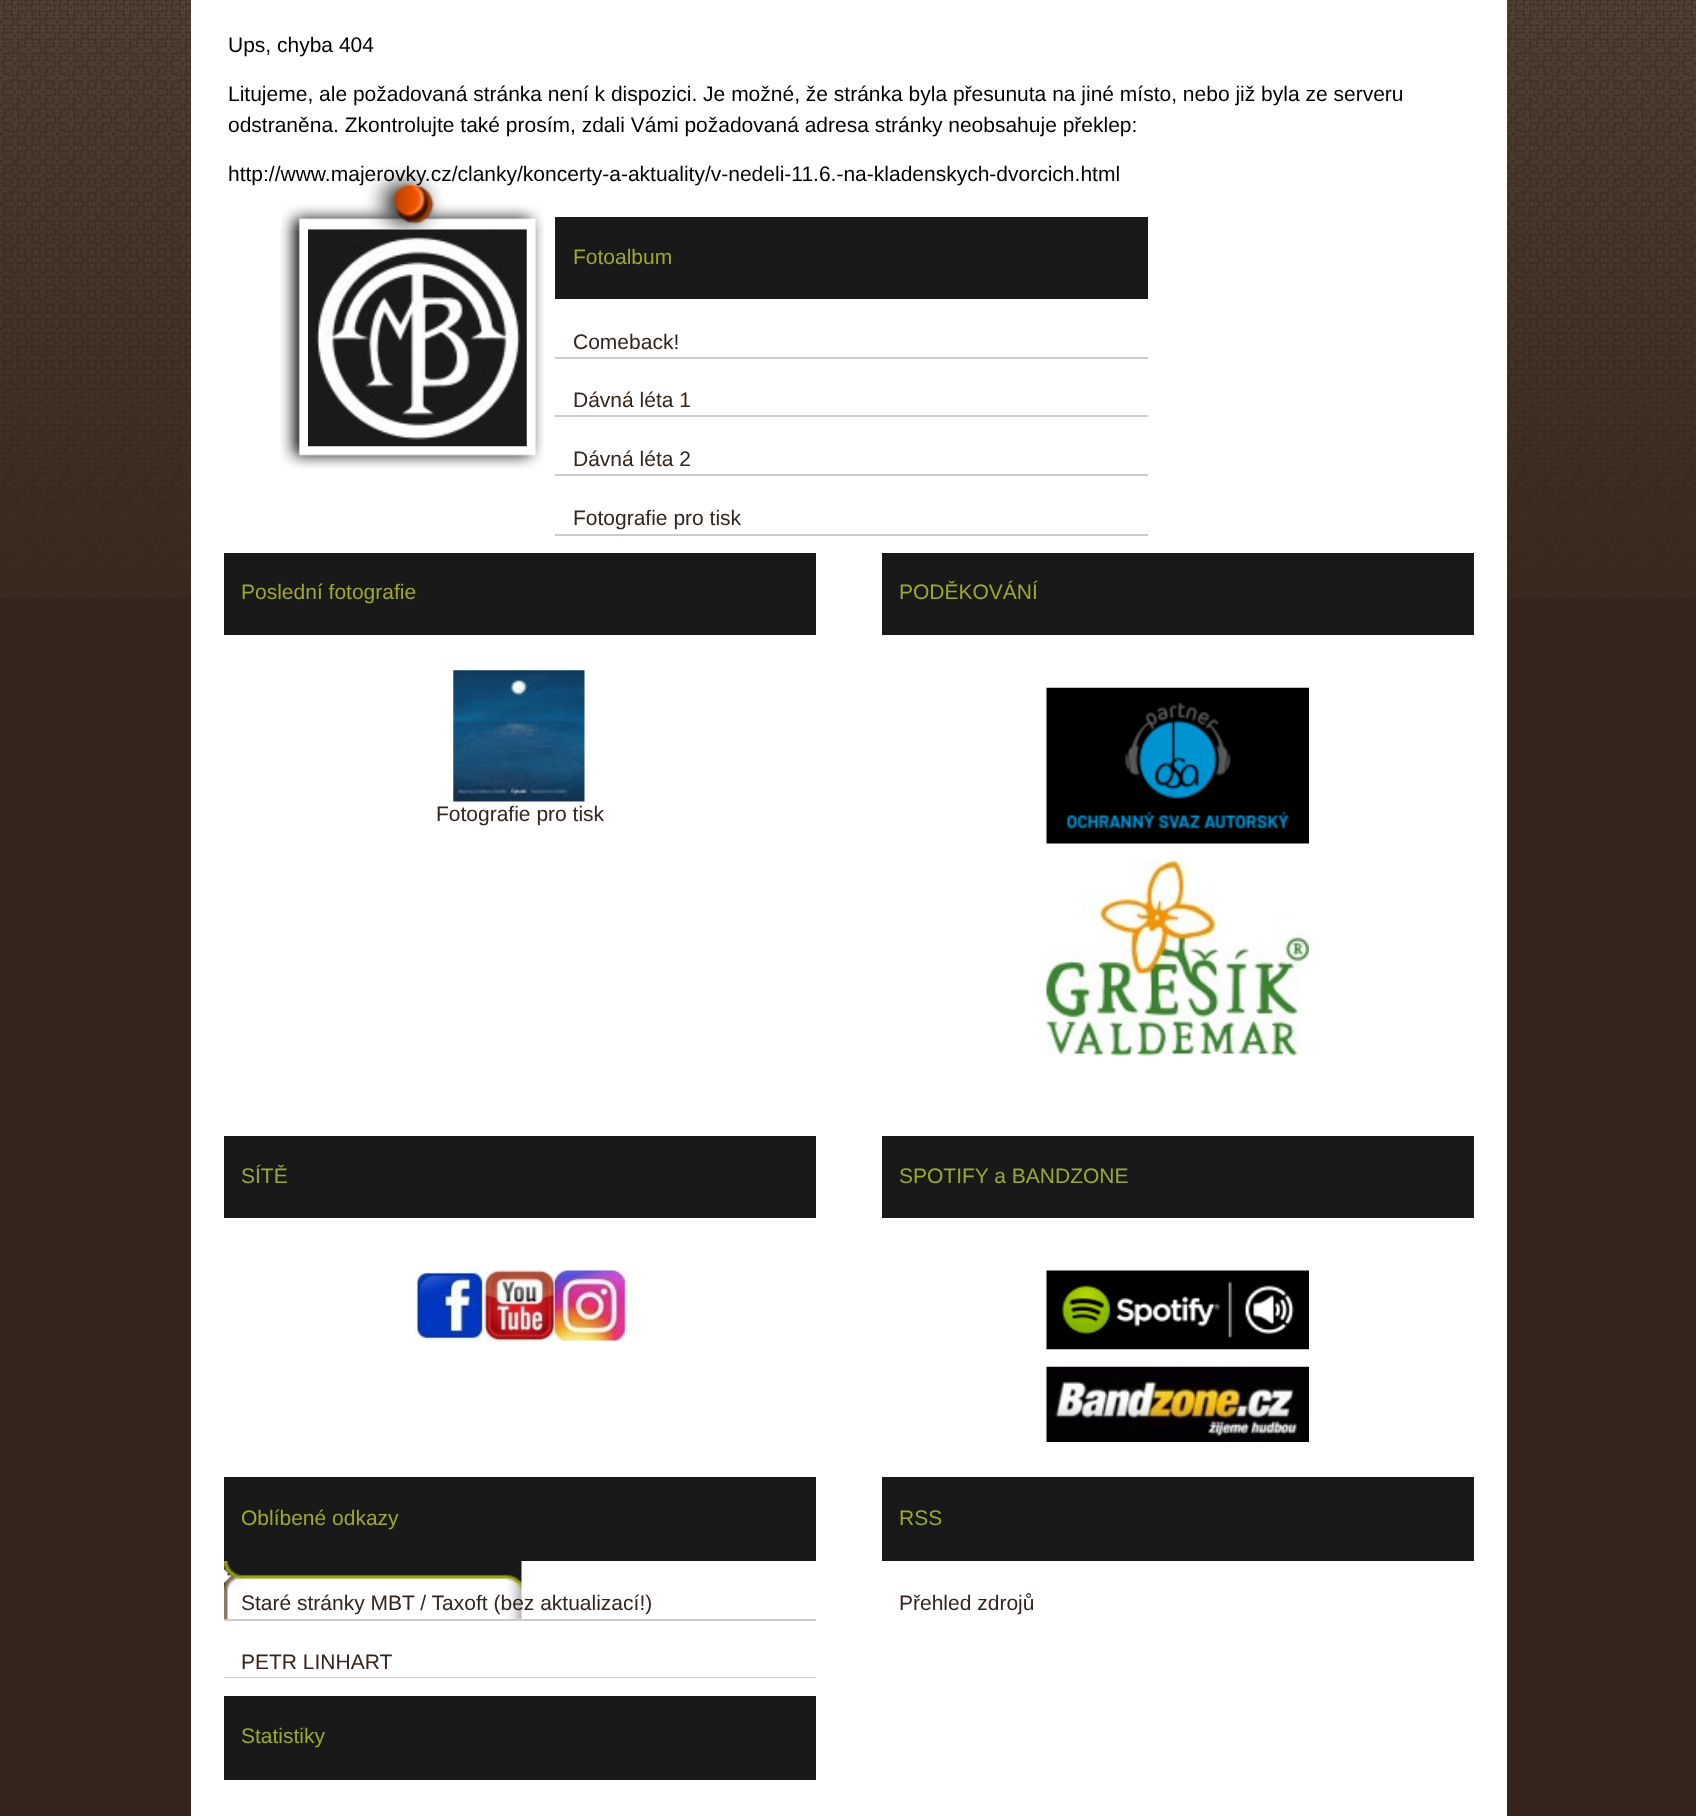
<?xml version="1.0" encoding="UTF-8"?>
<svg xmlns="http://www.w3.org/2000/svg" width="1696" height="1816">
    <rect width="100%" height="100%" fill="#33251B"/>
    <image x="0" y="0" width="1696" height="598" href="img_01.png"/>
    <rect x="191" y="0" width="1316" height="1816" fill="#FFFFFF"/>
    <text x="228" y="52" font-family="Liberation Sans" font-size="21" fill="#000000">Ups, chyba 404</text>
    <text font-family="Liberation Sans" font-size="21" fill="#000000">
        <tspan x="228" y="101">Litujeme, ale požadovaná stránka není k dispozici. Je možné, že stránka byla přesunuta na jiné místo, nebo již byla ze serveru</tspan>
        <tspan x="228" y="132">odstraněna. Zkontrolujte také prosím, zdali Vámi požadovaná adresa stránky neobsahuje překlep:</tspan>
    </text>
    <text x="228" y="181" font-family="Liberation Sans" font-size="21" fill="#000000">http://www.majerovky.cz/clanky/koncerty-a-aktuality/v-nedeli-11.6.-na-kladenskych-dvorcich.html</text>
    <image x="281" y="166" width="263" height="64" href="img_02.png"/>
    <image x="280" y="229" width="264" height="240" href="img_03.png"/>
    <image x="308" y="229" width="219" height="218" href="img_04.png"/>
    <rect x="555" y="217" width="593" height="82" fill="#191919"/>
    <text x="573" y="264" font-family="Liberation Sans" font-size="21" fill="#9BA832">Fotoalbum</text>
    <rect x="555" y="357" width="593" height="2" fill="#CCCCCC"/>
    <text x="573" y="349" font-family="Liberation Sans" font-size="21" fill="#33251B">Comeback!</text>
    <rect x="555" y="415" width="593" height="2" fill="#CCCCCC"/>
    <text x="573" y="407" font-family="Liberation Sans" font-size="21" fill="#33251B">Dávná léta 1</text>
    <rect x="555" y="474" width="593" height="2" fill="#CCCCCC"/>
    <text x="573" y="466" font-family="Liberation Sans" font-size="21" fill="#33251B">Dávná léta 2</text>
    <rect x="555" y="534" width="593" height="2" fill="#CCCCCC"/>
    <text x="573" y="525" font-family="Liberation Sans" font-size="21" fill="#33251B">Fotografie pro tisk</text>
    <rect x="224" y="553" width="592" height="82" fill="#191919"/>
    <text x="241" y="599" font-family="Liberation Sans" font-size="21" fill="#9BA832">Poslední fotografie</text>
    <image x="453" y="670" width="132" height="132" href="img_05.png"/>
    <text x="436" y="821" font-family="Liberation Sans" font-size="21" fill="#33251B">Fotografie pro tisk</text>
    <rect x="882" y="553" width="592" height="82" fill="#191919"/>
    <text x="899" y="599" font-family="Liberation Sans" font-size="21" fill="#9BA832">PODĚKOVÁNÍ</text>
    <image x="1046" y="687" width="263" height="157" href="img_06.png"/>
    <image x="1046" y="861" width="263" height="195" href="img_07.png"/>
    <rect x="224" y="1136" width="592" height="82" fill="#191919"/>
    <text x="241" y="1183" font-family="Liberation Sans" font-size="21" fill="#9BA832">SÍTĚ</text>
    <image x="414" y="1270" width="71" height="71" href="img_08.png"/>
    <image x="484" y="1270" width="71" height="71" href="img_09.png"/>
    <image x="554" y="1270" width="71" height="71" href="img_10.png"/>
    <rect x="882" y="1136" width="592" height="82" fill="#191919"/>
    <text x="899" y="1183" font-family="Liberation Sans" font-size="21" fill="#9BA832">SPOTIFY a BANDZONE</text>
    <image x="1046" y="1270" width="263" height="80" href="img_11.png"/>
    <image x="1046" y="1366" width="263" height="76" href="img_12.png"/>
    <rect x="224" y="1477" width="592" height="84" fill="#191919"/>
    <text x="241" y="1525" font-family="Liberation Sans" font-size="21" fill="#9BA832">Oblíbené odkazy</text>
    <image x="224" y="1561" width="298" height="58" href="img_13.png"/>
    <rect x="224" y="1619" width="592" height="2" fill="#CCCCCC"/>
    <text x="241" y="1610" font-family="Liberation Sans" font-size="21" fill="#33251B">Staré stránky MBT / Taxoft (bez aktualizací!)</text>
    <rect x="224" y="1677" width="592" height="1" fill="#CCCCCC"/>
    <text x="241" y="1669" font-family="Liberation Sans" font-size="21" fill="#33251B">PETR LINHART</text>
    <rect x="882" y="1477" width="592" height="84" fill="#191919"/>
    <text x="899" y="1525" font-family="Liberation Sans" font-size="21" fill="#9BA832">RSS</text>
    <text x="899" y="1610" font-family="Liberation Sans" font-size="21" fill="#33251B">Přehled zdrojů</text>
    <rect x="224" y="1696" width="592" height="84" fill="#191919"/>
    <text x="241" y="1743" font-family="Liberation Sans" font-size="21" fill="#9BA832">Statistiky</text>
</svg>
